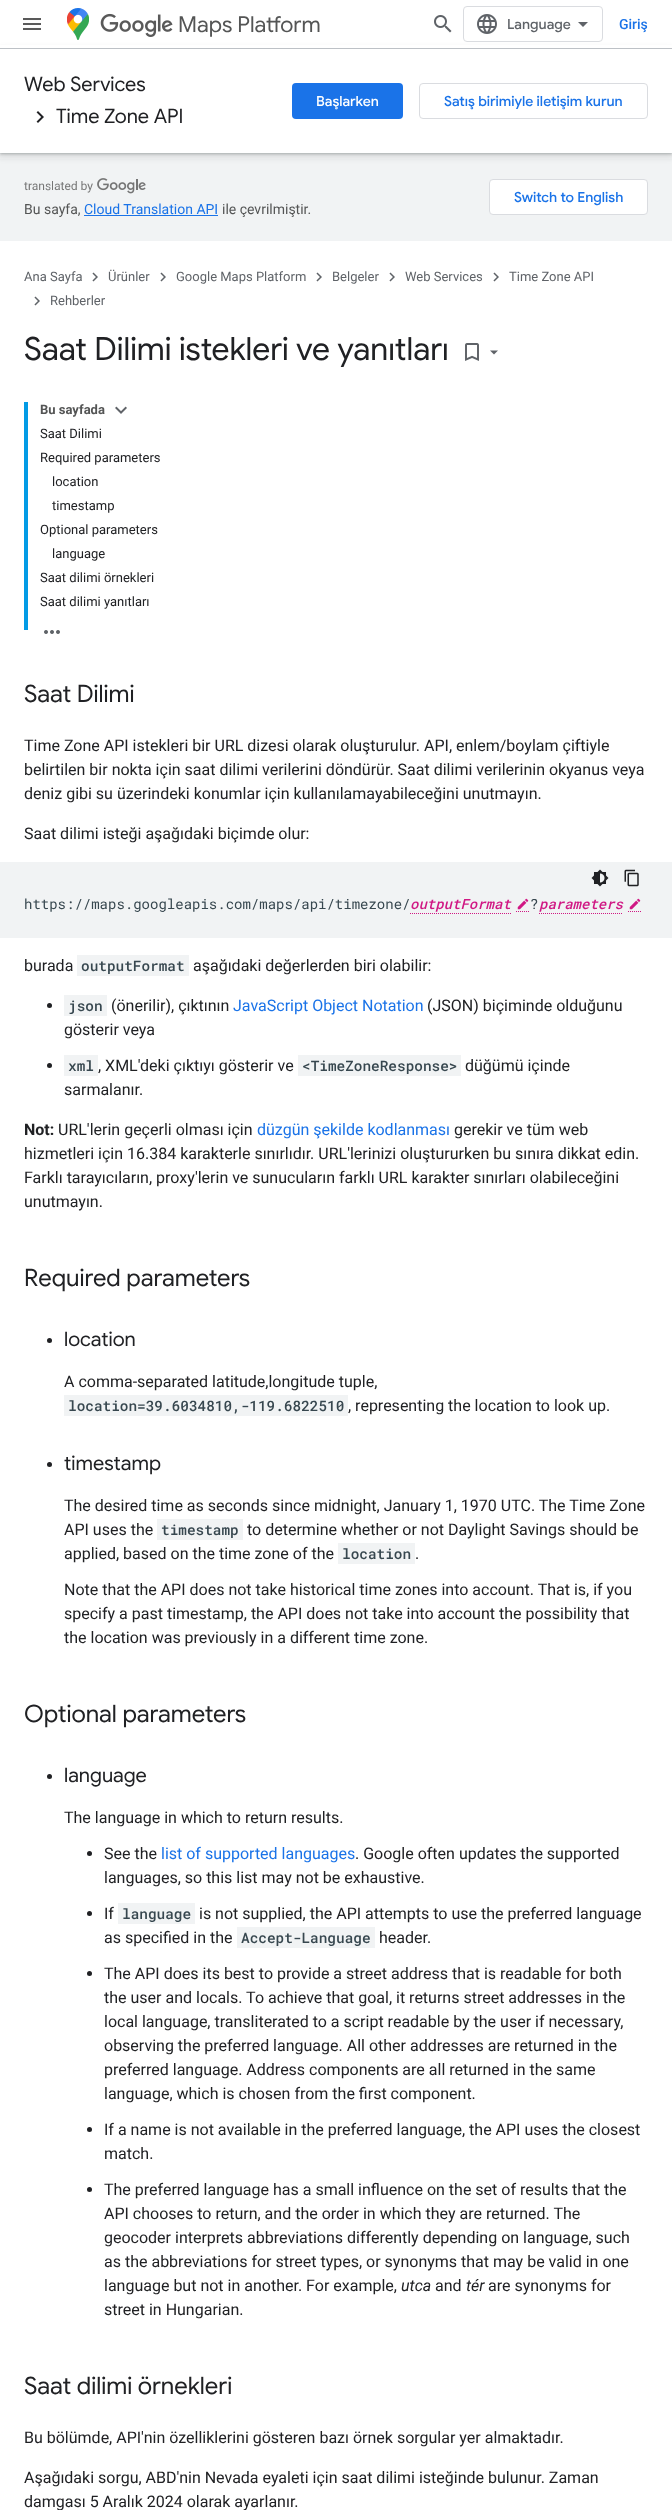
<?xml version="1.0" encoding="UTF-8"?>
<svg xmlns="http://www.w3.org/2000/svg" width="672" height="2510">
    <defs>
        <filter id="blur1" x="-50%" y="-200%" width="200%" height="500%"><feGaussianBlur stdDeviation="3"/></filter>
        <filter id="blur2" x="-50%" y="-200%" width="200%" height="500%"><feGaussianBlur stdDeviation="1"/></filter>
    </defs>
    <rect width="100%" height="100%" fill="#FFFFFF"/>
    <rect x="0" y="153" width="672" height="88" fill="#F1F3F4"/>
    <rect x="-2" y="49" width="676" height="108" fill="#3C4043" fill-opacity="0.15" filter="url(#blur1)"/>
    <rect x="0" y="50" width="672" height="104" fill="#3C4043" fill-opacity="0.3" filter="url(#blur2)"/>
    <rect x="0" y="45" width="672" height="3" fill="#FFFFFF"/>
    <rect x="0" y="48" width="672" height="1" fill="#BDC1C6"/>
    <image x="23" y="18" width="18" height="12" href="img_01.png"/>
    <image x="67" y="8" width="22" height="32" href="img_02.png"/>
    <image x="100" y="13" width="73" height="24" href="img_03.png"/>
    <text x="178" y="32" font-family="Google Sans" font-size="22" fill="#545555">Maps Platform</text>
    <image x="434" y="15" width="18" height="18" href="img_04.png"/>
    <rect x="463.5" y="6.5" width="139" height="35" rx="3.5" fill="none" stroke="#DADCE0"/>
    <image x="477" y="14" width="20" height="20" href="img_05.png"/>
    <text x="507" y="29" font-family="Google Sans" font-size="14" font-weight="500" fill="#5F6368">Language</text>
    <path d="M 583 27 L 578 22 H 588 Z" fill="#5F6368"/>
    <text x="619" y="29" font-family="Roboto" font-size="14" font-weight="500" fill="#1A73E8">Giriş</text>
    <rect x="0" y="49" width="672" height="104" fill="#FFFFFF"/>
    <text x="24" y="91" font-family="Google Sans" font-size="20" fill="#202124">Web Services</text>
    <image x="36" y="111" width="8" height="12" href="img_06.png"/>
    <text x="56" y="123" font-family="Google Sans" font-size="20" fill="#202124">Time Zone API</text>
    <rect x="292" y="83" width="111" height="36" rx="4" fill="#1A73E8"/>
    <text x="316" y="106" font-family="Google Sans" font-size="14" font-weight="500" fill="#FFFFFF">Başlarken</text>
    <rect x="419.5" y="83.5" width="228" height="35" rx="3.5" fill="none" stroke="#DADCE0"/>
    <text x="444" y="106" font-family="Google Sans" font-size="14" font-weight="500" fill="#1A73E8">Satış birimiyle iletişim kurun</text>
    <rect x="489.5" y="179.5" width="158" height="35" rx="3.5" fill="#FFFFFF" stroke="#DADCE0"/>
    <text x="514" y="202" font-family="Google Sans" font-size="14" font-weight="500" fill="#1A73E8">Switch to English</text>
    <image x="24" y="178" width="122" height="16" href="img_07.png"/>
    <text x="24" y="214" font-family="Roboto" font-size="14" fill="#545555">Bu sayfa,</text>
    <text x="84" y="214" font-family="Roboto" font-size="14" fill="#1A73E8">Cloud Translation API</text>
    <rect x="84" y="215" width="134" height="1" fill="#1A73E8"/>
    <text x="222" y="214" font-family="Roboto" font-size="14" fill="#545555">ile çevrilmiştir.</text>
    <text x="24" y="281" font-family="Roboto" font-size="13" fill="#5F6368">Ana Sayfa</text>
    <image x="92" y="272" width="6" height="10" href="img_08.png"/>
    <text x="108" y="281" font-family="Roboto" font-size="13" fill="#5F6368">Ürünler</text>
    <image x="160" y="272" width="6" height="10" href="img_08.png"/>
    <text x="176" y="281" font-family="Roboto" font-size="13" fill="#5F6368">Google Maps Platform</text>
    <image x="316" y="272" width="6" height="10" href="img_08.png"/>
    <text x="332" y="281" font-family="Roboto" font-size="13" fill="#5F6368">Belgeler</text>
    <image x="389" y="272" width="6" height="10" href="img_08.png"/>
    <text x="405" y="281" font-family="Roboto" font-size="13" fill="#5F6368">Web Services</text>
    <image x="493" y="272" width="6" height="10" href="img_08.png"/>
    <text x="509" y="281" font-family="Roboto" font-size="13" fill="#5F6368">Time Zone API</text>
    <image x="34" y="296" width="6" height="10" href="img_08.png"/>
    <text x="50" y="305" font-family="Roboto" font-size="13" fill="#5F6368">Rehberler</text>
    <text x="24" y="360" font-family="Google Sans" font-size="32" fill="#202124">Saat Dilimi istekleri ve yanıtları</text>
    <image x="465" y="343" width="14" height="18" href="img_09.png"/>
    <path d="M 490 350.5 H 498 L 494 354.5 Z" fill="#5F6368"/>
    <rect x="24" y="402" width="4" height="228" fill="#039BE5"/>
    <text x="40" y="414" font-family="Roboto" font-size="13" font-weight="700" fill="#545555">Bu sayfada</text>
    <image x="115" y="406" width="12" height="8" href="img_10.png"/>
    <text font-family="Roboto" font-size="13" fill="#202124">
        <tspan x="40" y="438">Saat Dilimi</tspan>
        <tspan x="40" y="462">Required parameters</tspan>
    </text>
    <text font-family="Roboto" font-size="13" fill="#202124">
        <tspan x="52" y="486">location</tspan>
        <tspan x="52" y="510">timestamp</tspan>
    </text>
    <text x="40" y="534" font-family="Roboto" font-size="13" fill="#202124">Optional parameters</text>
    <text x="52" y="558" font-family="Roboto" font-size="13" fill="#202124">language</text>
    <text font-family="Roboto" font-size="13" fill="#202124">
        <tspan x="40" y="582">Saat dilimi örnekleri</tspan>
        <tspan x="40" y="606">Saat dilimi yanıtları</tspan>
    </text>
    <image x="44" y="630" width="16" height="4" href="img_11.png"/>
    <text x="24" y="702" font-family="Google Sans" font-size="24" fill="#202124">Saat Dilimi</text>
    <text font-family="Roboto" font-size="16" fill="#202124">
        <tspan x="24" y="751">Time Zone API istekleri bir URL dizesi olarak oluşturulur. API, enlem/boylam çiftiyle</tspan>
        <tspan x="24" y="775">belirtilen bir nokta için saat dilimi verilerini döndürür. Saat dilimi verilerinin okyanus veya</tspan>
        <tspan x="24" y="799">deniz gibi su üzerindeki konumlar için kullanılamayabileceğini unutmayın.</tspan>
    </text>
    <text x="24" y="839" font-family="Roboto" font-size="16" fill="#202124">Saat dilimi isteği aşağıdaki biçimde olur:</text>
    <rect x="0" y="862" width="672" height="76" fill="#F1F3F4"/>
    <image x="591" y="869" width="18" height="18" href="img_12.png"/>
    <image x="624" y="869" width="15" height="18" href="img_13.png"/>
    <text x="24" y="909" font-family="Roboto Mono" font-size="14" fill="#37474F">https://maps.googleapis.com/maps/api/timezone/</text>
    <path d="M 410 913.5 H 511" fill="none" stroke="#D01884" stroke-dasharray="1 1"/>
    <path d="M 516 911.5 H 530" fill="none" stroke="#D01884" stroke-dasharray="1 1"/>
    <text x="410" y="909" font-family="Roboto Mono" font-size="14" font-weight="500" font-style="italic" fill="#D01884">outputFormat</text>
    <image x="517" y="898" width="12" height="12" href="img_14.png"/>
    <text x="530" y="909" font-family="Roboto Mono" font-size="14" fill="#37474F">?</text>
    <path d="M 539 913.5 H 623" fill="none" stroke="#D01884" stroke-dasharray="1 1"/>
    <path d="M 628 911.5 H 642" fill="none" stroke="#D01884" stroke-dasharray="1 1"/>
    <text x="539" y="909" font-family="Roboto Mono" font-size="14" font-weight="500" font-style="italic" fill="#D01884">parameters</text>
    <image x="629" y="898" width="12" height="12" href="img_14.png"/>
    <text x="24" y="971" font-family="Roboto" font-size="16" fill="#202124">burada</text>
    <rect x="77" y="955" width="112" height="21" fill="#F1F3F4"/>
    <text x="81" y="971" font-family="Roboto Mono" font-size="14.4" font-weight="500" fill="#37474F">outputFormat</text>
    <text x="193" y="971" font-family="Roboto" font-size="16" fill="#202124">aşağıdaki değerlerden biri olabilir:</text>
    <circle cx="49.5" cy="1005.5" r="2.5" fill="#202124"/>
    <rect x="64" y="995" width="43" height="21" fill="#F1F3F4"/>
    <text x="68" y="1011" font-family="Roboto Mono" font-size="14.4" font-weight="500" fill="#37474F">json</text>
    <text x="111" y="1011" font-family="Roboto" font-size="16" fill="#202124">(önerilir), çıktının</text>
    <text x="233" y="1011" font-family="Roboto" font-size="16" fill="#1A73E8">JavaScript Object Notation</text>
    <text x="427" y="1011" font-family="Roboto" font-size="16" fill="#202124">(JSON) biçiminde olduğunu</text>
    <text x="64" y="1035" font-family="Roboto" font-size="16" fill="#202124">gösterir veya</text>
    <circle cx="49.5" cy="1065.5" r="2.5" fill="#202124"/>
    <rect x="64" y="1055" width="34" height="21" fill="#F1F3F4"/>
    <text x="68" y="1071" font-family="Roboto Mono" font-size="14.4" font-weight="500" fill="#37474F">xml</text>
    <text x="98" y="1071" font-family="Roboto" font-size="16" fill="#202124">, XML'deki çıktıyı gösterir ve</text>
    <rect x="298" y="1055" width="163" height="21" fill="#F1F3F4"/>
    <text x="302" y="1071" font-family="Roboto Mono" font-size="14.4" font-weight="500" fill="#37474F">&lt;TimeZoneResponse&gt;</text>
    <text x="465" y="1071" font-family="Roboto" font-size="16" fill="#202124">düğümü içinde</text>
    <text x="64" y="1095" font-family="Roboto" font-size="16" fill="#202124">sarmalanır.</text>
    <text x="24" y="1135" font-family="Roboto" font-size="16" font-weight="700" fill="#202124">Not:</text>
    <text x="58" y="1135" font-family="Roboto" font-size="16" fill="#202124">URL'lerin geçerli olması için</text>
    <text x="257" y="1135" font-family="Roboto" font-size="16" fill="#1A73E8">düzgün şekilde kodlanması</text>
    <text x="454" y="1135" font-family="Roboto" font-size="16" fill="#202124">gerekir ve tüm web</text>
    <text font-family="Roboto" font-size="16" fill="#202124">
        <tspan x="24" y="1159">hizmetleri için 16.384 karakterle sınırlıdır. URL'lerinizi oluştururken bu sınıra dikkat edin.</tspan>
        <tspan x="24" y="1183">Farklı tarayıcıların, proxy'lerin ve sunucuların farklı URL karakter sınırları olabileceğini</tspan>
        <tspan x="24" y="1207">unutmayın.</tspan>
    </text>
    <text x="24" y="1286" font-family="Google Sans" font-size="24" fill="#202124">Required parameters</text>
    <circle cx="49.5" cy="1340.5" r="2.5" fill="#202124"/>
    <text x="64" y="1346" font-family="Google Sans" font-size="20" fill="#202124">location</text>
    <text x="64" y="1387" font-family="Roboto" font-size="16" fill="#202124">A comma-separated latitude,longitude tuple,</text>
    <rect x="64" y="1395" width="284" height="21" fill="#F1F3F4"/>
    <text x="68" y="1411" font-family="Roboto Mono" font-size="14.4" font-weight="500" fill="#37474F">location=39.6034810,-119.6822510</text>
    <text x="348" y="1411" font-family="Roboto" font-size="16" fill="#202124">, representing the location to look up.</text>
    <circle cx="49.5" cy="1464.5" r="2.5" fill="#202124"/>
    <text x="64" y="1470" font-family="Google Sans" font-size="20" fill="#202124">timestamp</text>
    <text font-family="Roboto" font-size="16" fill="#202124">
        <tspan x="64" y="1511">The desired time as seconds since midnight, January 1, 1970 UTC. The Time Zone</tspan>
        <tspan x="64" y="1535">API uses the</tspan>
    </text>
    <rect x="157" y="1519" width="86" height="21" fill="#F1F3F4"/>
    <text x="161" y="1535" font-family="Roboto Mono" font-size="14.4" font-weight="500" fill="#37474F">timestamp</text>
    <text x="247" y="1535" font-family="Roboto" font-size="16" fill="#202124">to determine whether or not Daylight Savings should be</text>
    <text x="64" y="1559" font-family="Roboto" font-size="16" fill="#202124">applied, based on the time zone of the</text>
    <rect x="338" y="1543" width="77" height="21" fill="#F1F3F4"/>
    <text x="342" y="1559" font-family="Roboto Mono" font-size="14.4" font-weight="500" fill="#37474F">location</text>
    <text x="415" y="1559" font-family="Roboto" font-size="16" fill="#202124">.</text>
    <text font-family="Roboto" font-size="16" fill="#202124">
        <tspan x="64" y="1595">Note that the API does not take historical time zones into account. That is, if you</tspan>
        <tspan x="64" y="1619">specify a past timestamp, the API does not take into account the possibility that</tspan>
        <tspan x="64" y="1643">the location was previously in a different time zone.</tspan>
    </text>
    <text x="24" y="1722" font-family="Google Sans" font-size="24" fill="#202124">Optional parameters</text>
    <circle cx="49.5" cy="1776.5" r="2.5" fill="#202124"/>
    <text x="64" y="1782" font-family="Google Sans" font-size="20" fill="#202124">language</text>
    <text x="64" y="1823" font-family="Roboto" font-size="16" fill="#202124">The language in which to return results.</text>
    <circle cx="89.5" cy="1853.5" r="2.5" fill="#202124"/>
    <text x="104" y="1859" font-family="Roboto" font-size="16" fill="#202124">See the</text>
    <text x="161" y="1859" font-family="Roboto" font-size="16" fill="#1A73E8">list of supported languages</text>
    <text x="355" y="1859" font-family="Roboto" font-size="16" fill="#202124">. Google often updates the supported</text>
    <text x="104" y="1883" font-family="Roboto" font-size="16" fill="#202124">languages, so this list may not be exhaustive.</text>
    <circle cx="89.5" cy="1913.5" r="2.5" fill="#202124"/>
    <text x="104" y="1919" font-family="Roboto" font-size="16" fill="#202124">If</text>
    <rect x="118" y="1903" width="77" height="21" fill="#F1F3F4"/>
    <text x="122" y="1919" font-family="Roboto Mono" font-size="14.4" font-weight="500" fill="#37474F">language</text>
    <text x="199" y="1919" font-family="Roboto" font-size="16" fill="#202124">is not supplied, the API attempts to use the preferred language</text>
    <text x="104" y="1943" font-family="Roboto" font-size="16" fill="#202124">as specified in the</text>
    <rect x="237" y="1927" width="138" height="21" fill="#F1F3F4"/>
    <text x="241" y="1943" font-family="Roboto Mono" font-size="14.4" font-weight="500" fill="#37474F">Accept-Language</text>
    <text x="379" y="1943" font-family="Roboto" font-size="16" fill="#202124">header.</text>
    <circle cx="89.5" cy="1973.5" r="2.5" fill="#202124"/>
    <text font-family="Roboto" font-size="16" fill="#202124">
        <tspan x="104" y="1979">The API does its best to provide a street address that is readable for both</tspan>
        <tspan x="104" y="2003">the user and locals. To achieve that goal, it returns street addresses in the</tspan>
        <tspan x="104" y="2027">local language, transliterated to a script readable by the user if necessary,</tspan>
        <tspan x="104" y="2051">observing the preferred language. All other addresses are returned in the</tspan>
        <tspan x="104" y="2075">preferred language. Address components are all returned in the same</tspan>
        <tspan x="104" y="2099">language, which is chosen from the first component.</tspan>
    </text>
    <circle cx="89.5" cy="2129.5" r="2.5" fill="#202124"/>
    <text font-family="Roboto" font-size="16" fill="#202124">
        <tspan x="104" y="2135">If a name is not available in the preferred language, the API uses the closest</tspan>
        <tspan x="104" y="2159">match.</tspan>
    </text>
    <circle cx="89.5" cy="2189.5" r="2.5" fill="#202124"/>
    <text font-family="Roboto" font-size="16" fill="#202124">
        <tspan x="104" y="2195">The preferred language has a small influence on the set of results that the</tspan>
        <tspan x="104" y="2219">API chooses to return, and the order in which they are returned. The</tspan>
        <tspan x="104" y="2243">geocoder interprets abbreviations differently depending on language, such</tspan>
        <tspan x="104" y="2267">as the abbreviations for street types, or synonyms that may be valid in one</tspan>
        <tspan x="104" y="2291">language but not in another. For example,</tspan>
    </text>
    <text x="401" y="2291" font-family="Roboto" font-size="16" font-style="italic" fill="#202124">utca</text>
    <text x="435" y="2291" font-family="Roboto" font-size="16" fill="#202124">and</text>
    <text x="466" y="2291" font-family="Roboto" font-size="16" font-style="italic" fill="#202124">tér</text>
    <text x="488" y="2291" font-family="Roboto" font-size="16" fill="#202124">are synonyms for</text>
    <text x="104" y="2315" font-family="Roboto" font-size="16" fill="#202124">street in Hungarian.</text>
    <text x="24" y="2394" font-family="Google Sans" font-size="24" fill="#202124">Saat dilimi örnekleri</text>
    <text x="24" y="2443" font-family="Roboto" font-size="16" fill="#202124">Bu bölümde, API'nin özelliklerini gösteren bazı örnek sorgular yer almaktadır.</text>
    <text font-family="Roboto" font-size="16" fill="#202124">
        <tspan x="24" y="2483">Aşağıdaki sorgu, ABD'nin Nevada eyaleti için saat dilimi isteğinde bulunur. Zaman</tspan>
        <tspan x="24" y="2507">damgası 5 Aralık 2024 olarak ayarlanır.</tspan>
    </text>
</svg>
